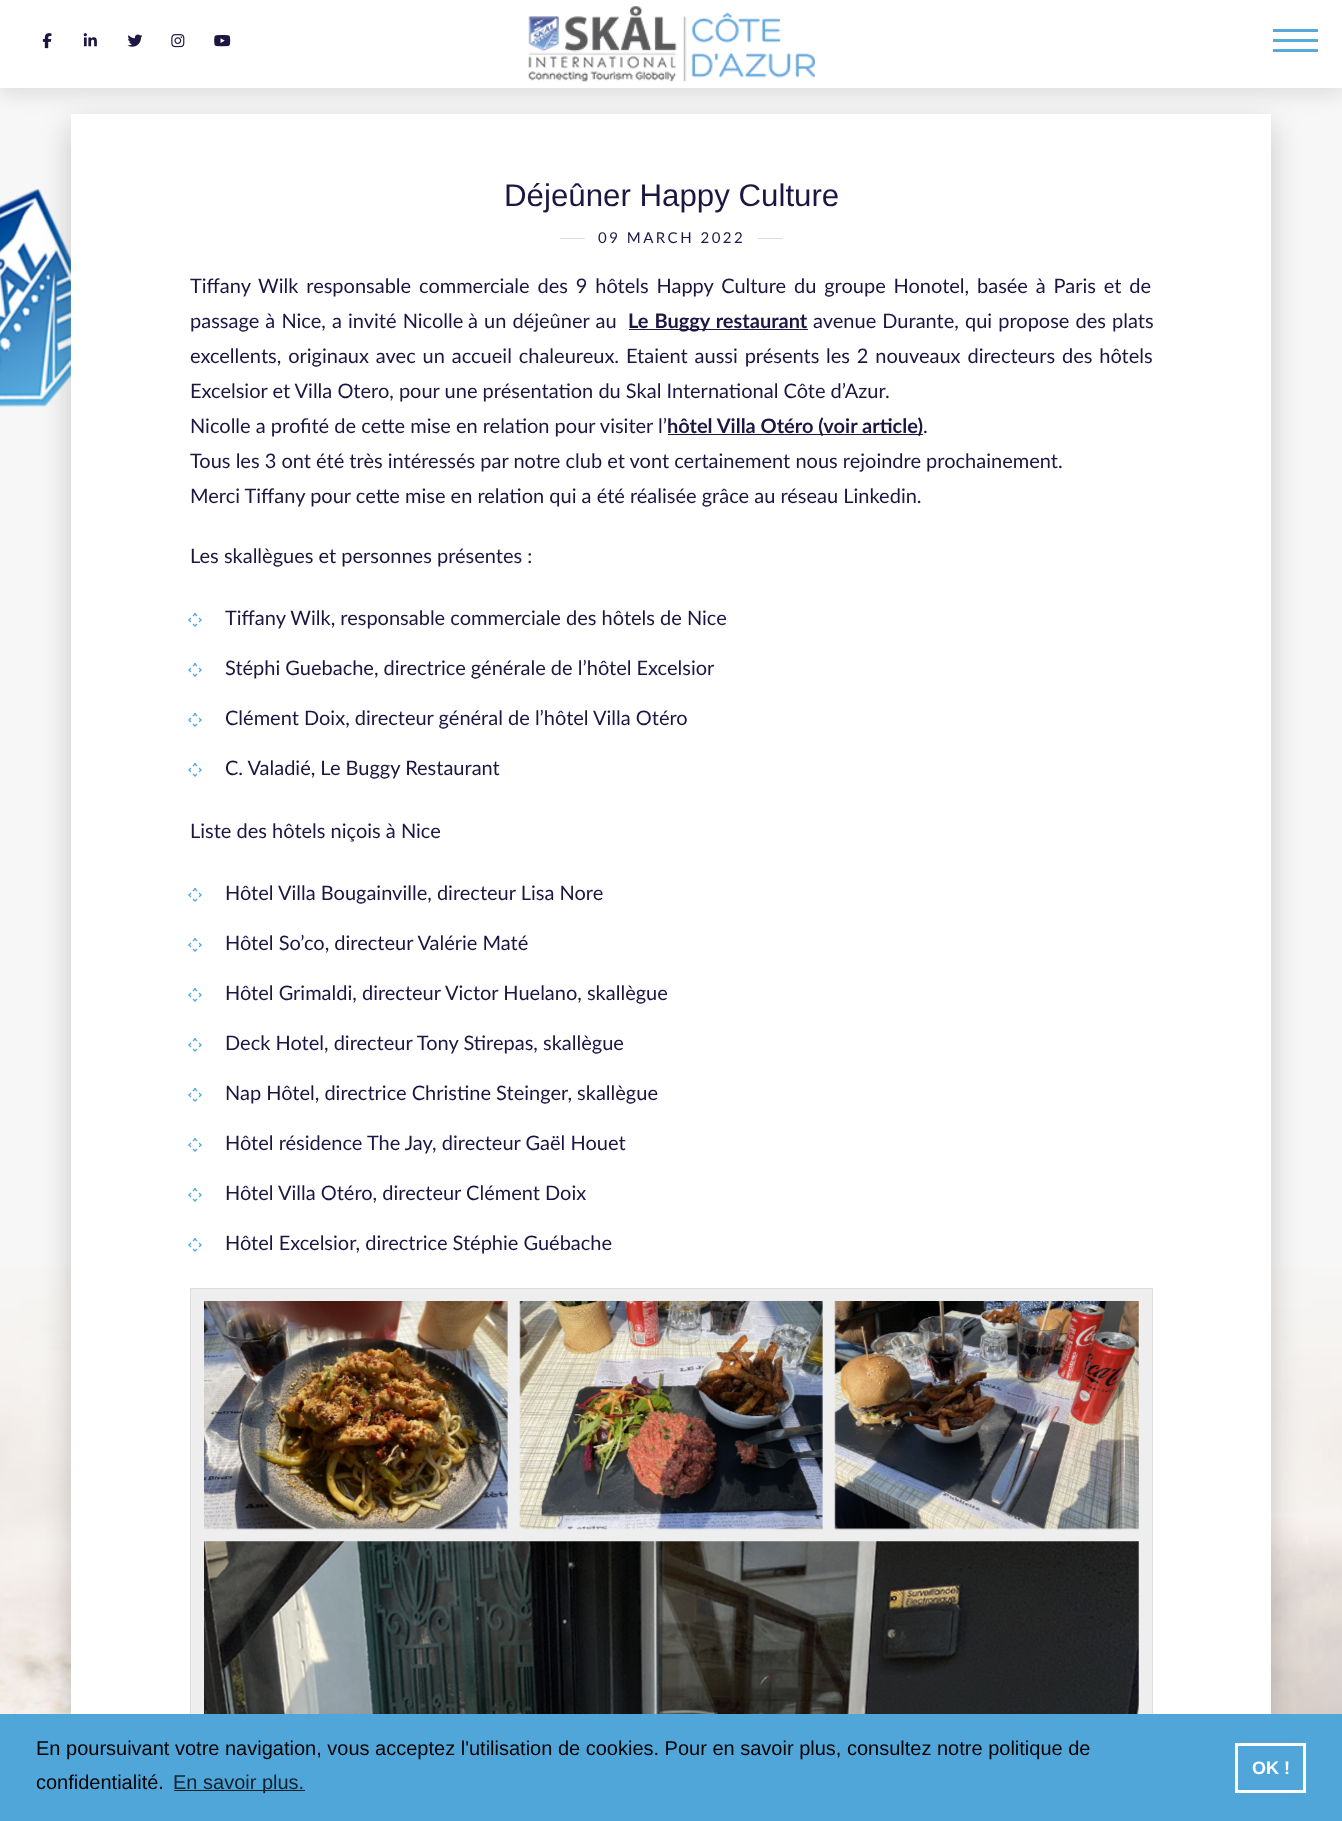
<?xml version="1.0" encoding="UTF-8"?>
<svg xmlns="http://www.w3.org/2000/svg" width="1342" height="1821">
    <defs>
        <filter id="blur1" x="-50%" y="-200%" width="200%" height="500%"><feGaussianBlur stdDeviation="15.5"/></filter>
        <filter id="blur2" x="-50%" y="-200%" width="200%" height="500%"><feGaussianBlur stdDeviation="9.5"/></filter>
    </defs>
    <rect width="100%" height="100%" fill="#F7F7F7"/>
    <image x="0" y="189" width="71" height="218" href="img_07.png"/>
    <image x="0" y="1267" width="1342" height="447" href="img_12.png"/>
    <rect x="71" y="126" width="1200" height="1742" fill="#000000" fill-opacity="0.2" filter="url(#blur1)"/>
    <rect x="71" y="114" width="1200" height="1600" fill="#FFFFFF"/>
    <rect x="0" y="8" width="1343" height="87" fill="#000000" fill-opacity="0.1" filter="url(#blur2)"/>
    <rect x="0" y="0" width="1342" height="88" fill="#FFFFFF"/>
    <image x="42" y="33" width="10" height="16" href="img_01.png"/>
    <image x="83" y="33" width="14" height="14" href="img_02.png"/>
    <image x="127" y="34" width="16" height="13" href="img_03.png"/>
    <image x="171" y="34" width="14" height="14" href="img_04.png"/>
    <image x="214" y="35" width="17" height="12" href="img_05.png"/>
    <image x="528" y="6" width="287" height="76" href="img_06.png"/>
    <rect x="1273" y="29" width="45" height="3" fill="#55A9DB"/>
    <rect x="1273" y="39" width="45" height="3" fill="#55A9DB"/>
    <rect x="1273" y="49" width="45" height="3" fill="#55A9DB"/>
    <text x="504" y="206" font-family="Liberation Sans" font-size="31.25" fill="#1B1642">Déjeûner Happy Culture</text>
    <rect x="560" y="238" width="25" height="1" fill="#DDDDDD"/>
    <text x="598" y="243" font-family="Lato" font-size="15" letter-spacing="2.5" fill="#1B1642">09 MARCH 2022</text>
    <rect x="758" y="238" width="25" height="1" fill="#DDDDDD"/>
    <text font-family="Lato" font-size="20" fill="#1B1642">
        <tspan x="190" y="293" word-spacing="2.75">Tiffany Wilk responsable commerciale des 9 hôtels Happy Culture du groupe Honotel, basée à Paris et de</tspan>
        <tspan x="190" y="328" word-spacing="1">passage à Nice, a invité Nicolle</tspan>
    </text>
    <text x="468" y="328" word-spacing="1" font-family="Lato" font-size="20" fill="#1B1642">à un déjeûner au</text>
    <rect x="629" y="329" width="179" height="1" fill="#1B1642"/>
    <text x="628" y="328" word-spacing="1" font-family="Lato" font-size="20" font-weight="700" fill="#1B1642">Le Buggy restaurant</text>
    <text x="813" y="328" word-spacing="1" font-family="Lato" font-size="20" fill="#1B1642">avenue Durante, qui propose des plats</text>
    <text x="190" y="363" word-spacing="1.75" font-family="Lato" font-size="20" fill="#1B1642">excellents, originaux avec un accueil chaleureux. Etaient aussi présents</text>
    <text x="826" y="363" word-spacing="1.75" font-family="Lato" font-size="20" fill="#1B1642">les 2 nouveaux directeurs des hôtels</text>
    <text font-family="Lato" font-size="20" fill="#1B1642">
        <tspan x="190" y="398">Excelsior et Villa Otero, pour une présentation du Skal International Côte d’Azur.</tspan>
        <tspan x="190" y="433">Nicolle a profité de cette mise en relation pour visiter l’</tspan>
    </text>
    <rect x="668" y="434" width="255" height="1" fill="#1B1642"/>
    <text x="667" y="433" font-family="Lato" font-size="20" font-weight="700" fill="#1B1642">hôtel Villa Otéro (voir article)</text>
    <text x="923" y="433" font-family="Lato" font-size="20" fill="#1B1642">.</text>
    <text font-family="Lato" font-size="20" fill="#1B1642">
        <tspan x="190" y="468">Tous les 3 ont été très intéressés par notre club et vont certainement nous rejoindre prochainement.</tspan>
        <tspan x="190" y="503">Merci Tiffany pour cette mise en relation qui a été réalisée grâce au réseau Linkedin.</tspan>
    </text>
    <text x="190" y="563" font-family="Lato" font-size="20" fill="#1B1642">Les skallègues et personnes présentes :</text>
    <path d="M 194.5 613.5 L 197 616 M 199 618 L 201.5 620.5 M 201.5 619.5 L 199 622 M 197 624 L 194.5 626.5 M 188.5 619.5 L 191 622 M 193 624 L 195.5 626.5 M 195.5 613.5 L 193 616 M 191 618 L 188.5 620.5" fill="none" stroke="#55A9DB" stroke-width="1.3"/>
    <text x="225" y="625" font-family="Lato" font-size="20" fill="#1B1642">Tiffany Wilk, responsable commerciale des hôtels de Nice</text>
    <path d="M 194.5 663.5 L 197 666 M 199 668 L 201.5 670.5 M 201.5 669.5 L 199 672 M 197 674 L 194.5 676.5 M 188.5 669.5 L 191 672 M 193 674 L 195.5 676.5 M 195.5 663.5 L 193 666 M 191 668 L 188.5 670.5" fill="none" stroke="#55A9DB" stroke-width="1.3"/>
    <text x="225" y="675" font-family="Lato" font-size="20" fill="#1B1642">Stéphi Guebache, directrice générale de l’hôtel Excelsior</text>
    <path d="M 194.5 713.5 L 197 716 M 199 718 L 201.5 720.5 M 201.5 719.5 L 199 722 M 197 724 L 194.5 726.5 M 188.5 719.5 L 191 722 M 193 724 L 195.5 726.5 M 195.5 713.5 L 193 716 M 191 718 L 188.5 720.5" fill="none" stroke="#55A9DB" stroke-width="1.3"/>
    <text x="225" y="725" font-family="Lato" font-size="20" fill="#1B1642">Clément Doix, directeur général de l’hôtel Villa Otéro</text>
    <path d="M 194.5 763.5 L 197 766 M 199 768 L 201.5 770.5 M 201.5 769.5 L 199 772 M 197 774 L 194.5 776.5 M 188.5 769.5 L 191 772 M 193 774 L 195.5 776.5 M 195.5 763.5 L 193 766 M 191 768 L 188.5 770.5" fill="none" stroke="#55A9DB" stroke-width="1.3"/>
    <text x="225" y="775" font-family="Lato" font-size="20" fill="#1B1642">C. Valadié, Le Buggy Restaurant</text>
    <text x="190" y="838" font-family="Lato" font-size="20" fill="#1B1642">Liste des hôtels niçois à Nice</text>
    <path d="M 194.5 888.5 L 197 891 M 199 893 L 201.5 895.5 M 201.5 894.5 L 199 897 M 197 899 L 194.5 901.5 M 188.5 894.5 L 191 897 M 193 899 L 195.5 901.5 M 195.5 888.5 L 193 891 M 191 893 L 188.5 895.5" fill="none" stroke="#55A9DB" stroke-width="1.3"/>
    <text x="225" y="900" font-family="Lato" font-size="20" fill="#1B1642">Hôtel Villa Bougainville, directeur Lisa Nore</text>
    <path d="M 194.5 938.5 L 197 941 M 199 943 L 201.5 945.5 M 201.5 944.5 L 199 947 M 197 949 L 194.5 951.5 M 188.5 944.5 L 191 947 M 193 949 L 195.5 951.5 M 195.5 938.5 L 193 941 M 191 943 L 188.5 945.5" fill="none" stroke="#55A9DB" stroke-width="1.3"/>
    <text x="225" y="950" font-family="Lato" font-size="20" fill="#1B1642">Hôtel So’co, directeur Valérie Maté</text>
    <path d="M 194.5 988.5 L 197 991 M 199 993 L 201.5 995.5 M 201.5 994.5 L 199 997 M 197 999 L 194.5 1001.5 M 188.5 994.5 L 191 997 M 193 999 L 195.5 1001.5 M 195.5 988.5 L 193 991 M 191 993 L 188.5 995.5" fill="none" stroke="#55A9DB" stroke-width="1.3"/>
    <text x="225" y="1000" font-family="Lato" font-size="20" fill="#1B1642">Hôtel Grimaldi, directeur Victor Huelano, skallègue</text>
    <path d="M 194.5 1038.5 L 197 1041 M 199 1043 L 201.5 1045.5 M 201.5 1044.5 L 199 1047 M 197 1049 L 194.5 1051.5 M 188.5 1044.5 L 191 1047 M 193 1049 L 195.5 1051.5 M 195.5 1038.5 L 193 1041 M 191 1043 L 188.5 1045.5" fill="none" stroke="#55A9DB" stroke-width="1.3"/>
    <text x="225" y="1050" font-family="Lato" font-size="20" fill="#1B1642">Deck Hotel, directeur Tony Stirepas, skallègue</text>
    <path d="M 194.5 1088.5 L 197 1091 M 199 1093 L 201.5 1095.5 M 201.5 1094.5 L 199 1097 M 197 1099 L 194.5 1101.5 M 188.5 1094.5 L 191 1097 M 193 1099 L 195.5 1101.5 M 195.5 1088.5 L 193 1091 M 191 1093 L 188.5 1095.5" fill="none" stroke="#55A9DB" stroke-width="1.3"/>
    <text x="225" y="1100" font-family="Lato" font-size="20" fill="#1B1642">Nap Hôtel, directrice Christine Steinger, skallègue</text>
    <path d="M 194.5 1138.5 L 197 1141 M 199 1143 L 201.5 1145.5 M 201.5 1144.5 L 199 1147 M 197 1149 L 194.5 1151.5 M 188.5 1144.5 L 191 1147 M 193 1149 L 195.5 1151.5 M 195.5 1138.5 L 193 1141 M 191 1143 L 188.5 1145.5" fill="none" stroke="#55A9DB" stroke-width="1.3"/>
    <text x="225" y="1150" font-family="Lato" font-size="20" fill="#1B1642">Hôtel résidence The Jay, directeur Gaël Houet</text>
    <path d="M 194.5 1188.5 L 197 1191 M 199 1193 L 201.5 1195.5 M 201.5 1194.5 L 199 1197 M 197 1199 L 194.5 1201.5 M 188.5 1194.5 L 191 1197 M 193 1199 L 195.5 1201.5 M 195.5 1188.5 L 193 1191 M 191 1193 L 188.5 1195.5" fill="none" stroke="#55A9DB" stroke-width="1.3"/>
    <text x="225" y="1200" font-family="Lato" font-size="20" fill="#1B1642">Hôtel Villa Otéro, directeur Clément Doix</text>
    <path d="M 194.5 1238.5 L 197 1241 M 199 1243 L 201.5 1245.5 M 201.5 1244.5 L 199 1247 M 197 1249 L 194.5 1251.5 M 188.5 1244.5 L 191 1247 M 193 1249 L 195.5 1251.5 M 195.5 1238.5 L 193 1241 M 191 1243 L 188.5 1245.5" fill="none" stroke="#55A9DB" stroke-width="1.3"/>
    <text x="225" y="1250" font-family="Lato" font-size="20" fill="#1B1642">Hôtel Excelsior, directrice Stéphie Guébache</text>
    <rect x="191" y="1289" width="961" height="425" fill="#EEEEEE"/>
    <rect x="190.5" y="1288.5" width="962" height="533" fill="none" stroke="#DDDDDD"/>
    <image x="204" y="1301" width="304" height="229" href="img_08.png"/>
    <image x="519" y="1301" width="304" height="229" href="img_09.png"/>
    <image x="834" y="1301" width="305" height="229" href="img_10.png"/>
    <image x="204" y="1541" width="935" height="173" href="img_11.png"/>
    <rect x="0" y="1714" width="1342" height="107" fill="#51A6D9"/>
    <text font-family="Liberation Sans" font-size="20" fill="#000000">
        <tspan x="36" y="1755">En poursuivant votre navigation, vous acceptez l'utilisation de cookies. Pour en savoir plus, consultez notre politique de</tspan>
        <tspan x="36" y="1789">confidentialité.</tspan>
    </text>
    <rect x="174" y="1790" width="131" height="1" fill="#10212B"/>
    <text x="173" y="1789" font-family="Liberation Sans" font-size="20" fill="#10212B">En savoir plus.</text>
    <rect x="1236.5" y="1744.5" width="68" height="47" fill="none" stroke="#FFFFFF" stroke-width="3"/>
    <text x="1252" y="1774" font-family="Liberation Sans" font-size="18" font-weight="700" fill="#FFFFFF">OK !</text>
</svg>
